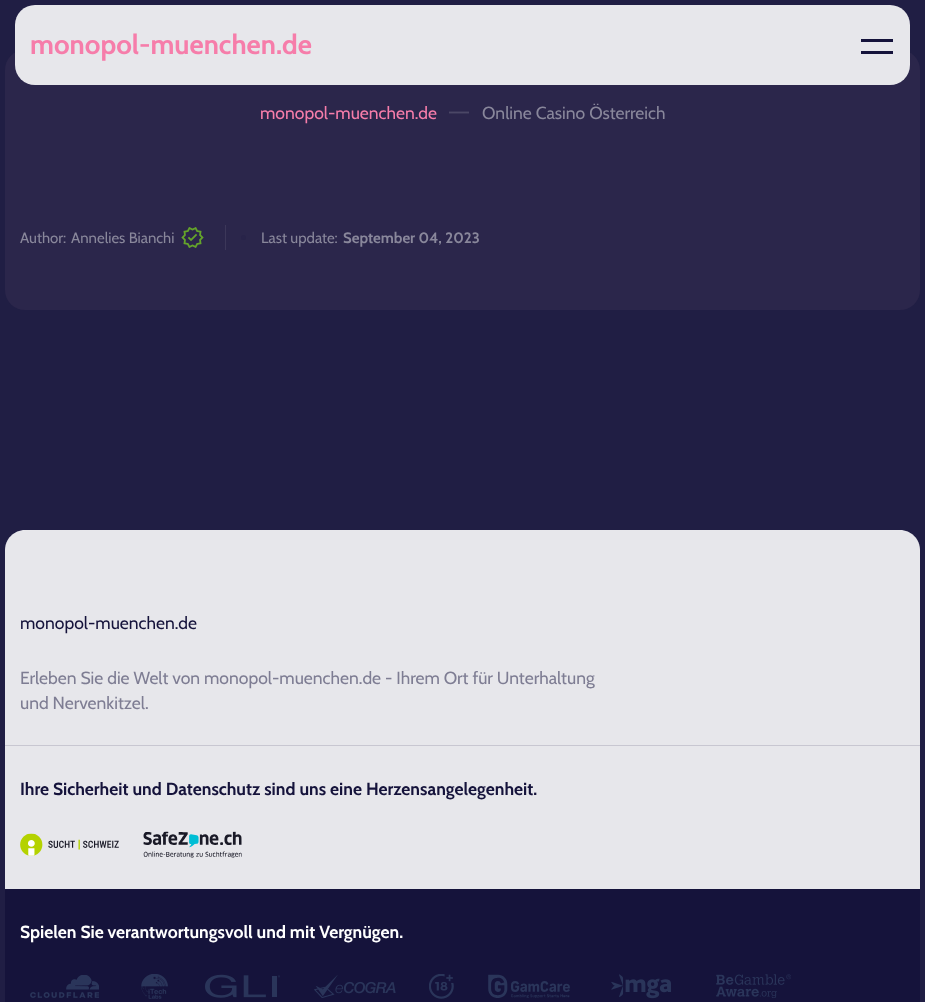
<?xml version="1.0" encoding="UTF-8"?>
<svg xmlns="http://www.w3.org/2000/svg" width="925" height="1002">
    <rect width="100%" height="100%" fill="#201E44"/>
    <rect x="5" y="50" width="915" height="260" rx="20" fill="#2B264B"/>
    <rect x="15" y="5" width="895" height="80" rx="20" fill="#E7E7EB"/>
    <text x="30" y="54" font-family="Cabin" font-size="27.5" font-weight="700" fill="#F67DAA">monopol-muenchen.de</text>
    <rect x="861" y="39" width="32" height="3" fill="#15133B"/>
    <rect x="861" y="51" width="32" height="3" fill="#15133B"/>
    <text x="260" y="119" font-family="Cabin" font-size="17.5" fill="#F67DAA">monopol-muenchen.de</text>
    <path d="M 449 112.5 H 469" fill="none" stroke="#4B4766" stroke-width="1.9"/>
    <text x="482" y="119" font-family="Cabin" font-size="17.5" fill="#89879B">Online Casino Österreich</text>
    <rect x="225" y="225" width="1" height="25" fill="#3C3759"/>
    <text x="20" y="243" font-family="Cabin" font-size="15" fill="#89879B">Author:</text>
    <text x="71" y="243" font-family="Cabin" font-size="15" fill="#89879B">Annelies Bianchi</text>
    <image x="181" y="227" width="23" height="21" href="img_01.png"/>
    <circle cx="243.5" cy="237.5" r="2.5" fill="#282349"/>
    <text x="261" y="243" font-family="Cabin" font-size="15" fill="#89879B">Last update:</text>
    <text x="343" y="243" font-family="Cabin" font-size="15" font-weight="700" fill="#89879B">September 04, 2023</text>
    <path d="M 25 530 H 900 C 911 530 920 539 920 550 V 746 H 5 V 550 C 5 539 14 530 25 530 Z" fill="#E7E7EB"/>
    <rect x="5" y="745" width="915" height="1" fill="#C8C7D1"/>
    <text x="20" y="629" font-family="Cabin" font-size="17.5" fill="#15133B">monopol-muenchen.de</text>
    <text font-family="Cabin" font-size="17.5" fill="#7E7D93">
        <tspan x="20" y="684">Erleben Sie die Welt von monopol-muenchen.de - Ihrem Ort für Unterhaltung</tspan>
        <tspan x="20" y="709">und Nervenkitzel.</tspan>
    </text>
    <rect x="5" y="746" width="915" height="143" fill="#E7E7EB"/>
    <text x="20" y="795" font-family="Cabin" font-size="17.5" font-weight="700" fill="#15133B">Ihre Sicherheit und Datenschutz sind uns eine Herzensangelegenheit.</text>
    <image x="20" y="833" width="99" height="23" href="img_02.png"/>
    <image x="143" y="831" width="99" height="27" href="img_03.png"/>
    <rect x="5" y="889" width="915" height="113" fill="#15133B"/>
    <text x="20" y="938" font-family="Cabin" font-size="17.5" font-weight="700" fill="#FFFFFF">Spielen Sie verantwortungsvoll und mit Vergnügen.</text>
    <image x="30" y="975" width="69" height="23" href="img_04.png"/>
    <image x="141" y="974" width="27" height="25" href="img_05.png"/>
    <image x="205" y="974" width="75" height="24" href="img_06.png"/>
    <image x="314" y="975" width="82" height="23" href="img_07.png"/>
    <image x="429" y="974" width="25" height="25" href="img_08.png"/>
    <image x="488" y="974" width="82" height="24" href="img_09.png"/>
    <image x="611" y="974" width="60" height="25" href="img_10.png"/>
    <image x="716" y="974" width="75" height="24" href="img_11.png"/>
</svg>
